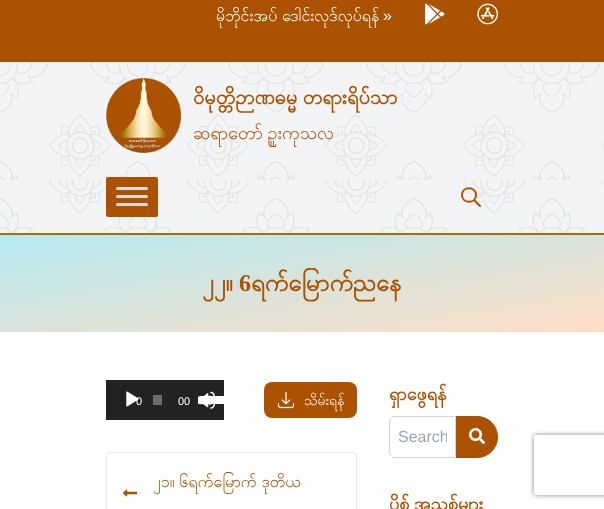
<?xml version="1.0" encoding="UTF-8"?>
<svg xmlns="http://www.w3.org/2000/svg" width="604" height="509">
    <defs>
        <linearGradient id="g1" gradientUnits="userSpaceOnUse" x1="287" y1="189" x2="317" y2="378"><stop offset="0" stop-color="#B4E9F2"/><stop offset="1" stop-color="#FEDEC5"/></linearGradient>
        <clipPath id="clip1"><rect x="398" y="428" width="49" height="18"/></clipPath>
        <clipPath id="clip2"><path d="M 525 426 H 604 V 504 H 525 Z M 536 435 H 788 C 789 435 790 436 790 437 V 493 C 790 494 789 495 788 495 H 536 C 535 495 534 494 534 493 V 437 C 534 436 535 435 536 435 Z" clip-rule="evenodd"/></clipPath>
        <filter id="blur1" x="-50%" y="-200%" width="200%" height="500%"><feGaussianBlur stdDeviation="2.5"/></filter>
    </defs>
    <rect width="100%" height="100%" fill="#FFFFFF"/>
    <rect x="0" y="62" width="604" height="171" fill="#F3F4F6"/>
    <image x="0" y="62" width="604" height="171" href="img_01.png"/>
    <rect x="0" y="233" width="604" height="2" fill="#A17000"/>
    <rect x="0" y="0" width="604" height="62" fill="#AB5200"/>
    <text x="216" y="21" word-spacing="-1" font-family="Padauk" font-size="16" fill="#FFFFFF">မိုဘိုင်းအပ် ဒေါင်းလုဒ်လုပ်ရန်</text>
    <text x="383" y="21" font-family="Liberation Sans" font-size="16" fill="#FFFFFF">»</text>
    <image x="425" y="3" width="20" height="22" href="img_02.png"/>
    <image x="477" y="3" width="21" height="22" href="img_03.png"/>
    <image x="106" y="78" width="75" height="75" href="img_04.png"/>
    <text x="193" y="104" word-spacing="-2" font-family="Padauk" font-size="20" font-weight="700" fill="#AB5200">ဝိမုတ္တိဉာဏဓမ္မ တရားရိပ်သာ</text>
    <text x="193" y="139" word-spacing="-2" font-family="Padauk" font-size="18" fill="#AB5200">ဆရာတော် ဉူးကုသလ</text>
    <rect x="106" y="177" width="52" height="40" rx="2" fill="#AB5200"/>
    <rect x="116" y="187" width="32" height="3" rx="1.5" fill="#DDDDDD"/>
    <rect x="116" y="195" width="32" height="3" rx="1.5" fill="#DDDDDD"/>
    <rect x="116" y="203" width="32" height="3" rx="1.5" fill="#DDDDDD"/>
    <path d="M 480 206 L 474 200 M 476 195 C 476 204 462 204 462 195 C 462 186 476 186 476 195 Z" fill="none" stroke="#AB5200" stroke-width="2" stroke-linecap="round" stroke-linejoin="round"/>
    <rect x="0" y="235" width="604" height="97" fill="url(#g1)"/>
    <text x="202" y="291" font-family="Padauk" font-size="24" font-weight="700" fill="#AB5200">၂၂။</text>
    <text x="239" y="291" font-family="Liberation Serif" font-size="24" font-weight="700" fill="#AB5200">6</text>
    <text x="251" y="291" font-family="Padauk" font-size="24" font-weight="700" fill="#AB5200">ရက်မြောက်ညနေ</text>
    <rect x="106" y="380" width="118" height="40" fill="#222222"/>
    <text x="136" y="405" font-family="Liberation Sans" font-size="11" fill="#FFFFFF">0</text>
    <image x="126" y="391" width="13" height="16" href="img_05.png"/>
    <rect x="153" y="395" width="9" height="10" fill="#6B6B6B"/>
    <image x="198" y="391" width="18" height="18" href="img_06.png"/>
    <text x="178" y="405" font-family="Liberation Sans" font-size="11" fill="#FFFFFF">00</text>
    <rect x="200" y="396" width="24" height="8" fill="#FFFFFF"/>
    <rect x="264" y="382" width="93" height="36" rx="8" fill="#AB5200"/>
    <image x="277" y="392" width="18" height="17" href="img_07.png"/>
    <text x="304" y="405" font-family="Padauk" font-size="14" fill="#FFFFFF">သိမ်းရန်</text>
    <rect x="106.5" y="452.5" width="250" height="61" rx="3.5" fill="none" stroke="#E5E7EB"/>
    <image x="123" y="489" width="15" height="8" href="img_08.png"/>
    <text x="153" y="487" word-spacing="-1" font-family="Padauk" font-size="16" fill="#AB5200">၂၁။ ၆ရက်မြောက် ဒုတိယ</text>
    <text x="389" y="400" font-family="Padauk" font-size="18" font-weight="700" fill="#AB5200">ရှာဖွေရန်</text>
    <path d="M 395 416.5 H 455.5 V 457.5 H 395 C 392 457.5 389.5 455 389.5 452 V 422 C 389.5 419 392 416.5 395 416.5 Z" fill="none" stroke="#D1D5DB"/>
    <g clip-path="url(#clip1)">
        <text x="398" y="442" font-family="Liberation Sans" font-size="16" fill="#9CA3AF">Search</text>
    </g>
    <path d="M 456.5 416.5 H 477 C 488.5 416.5 497.5 425.5 497.5 437 C 497.5 448.5 488.5 457.5 477 457.5 H 456.5 Z" fill="#AB5200" stroke="#AB5200"/>
    <image x="469" y="428" width="16" height="16" href="img_09.png"/>
    <text x="389" y="510" word-spacing="-2" font-family="Padauk" font-size="18" font-weight="700" fill="#AB5200">ပို့စ် အသစ်များ</text>
    <g clip-path="url(#clip2)">
        <rect x="534" y="435" width="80" height="60" rx="2" fill="#808080" filter="url(#blur1)"/>
    </g>
</svg>
